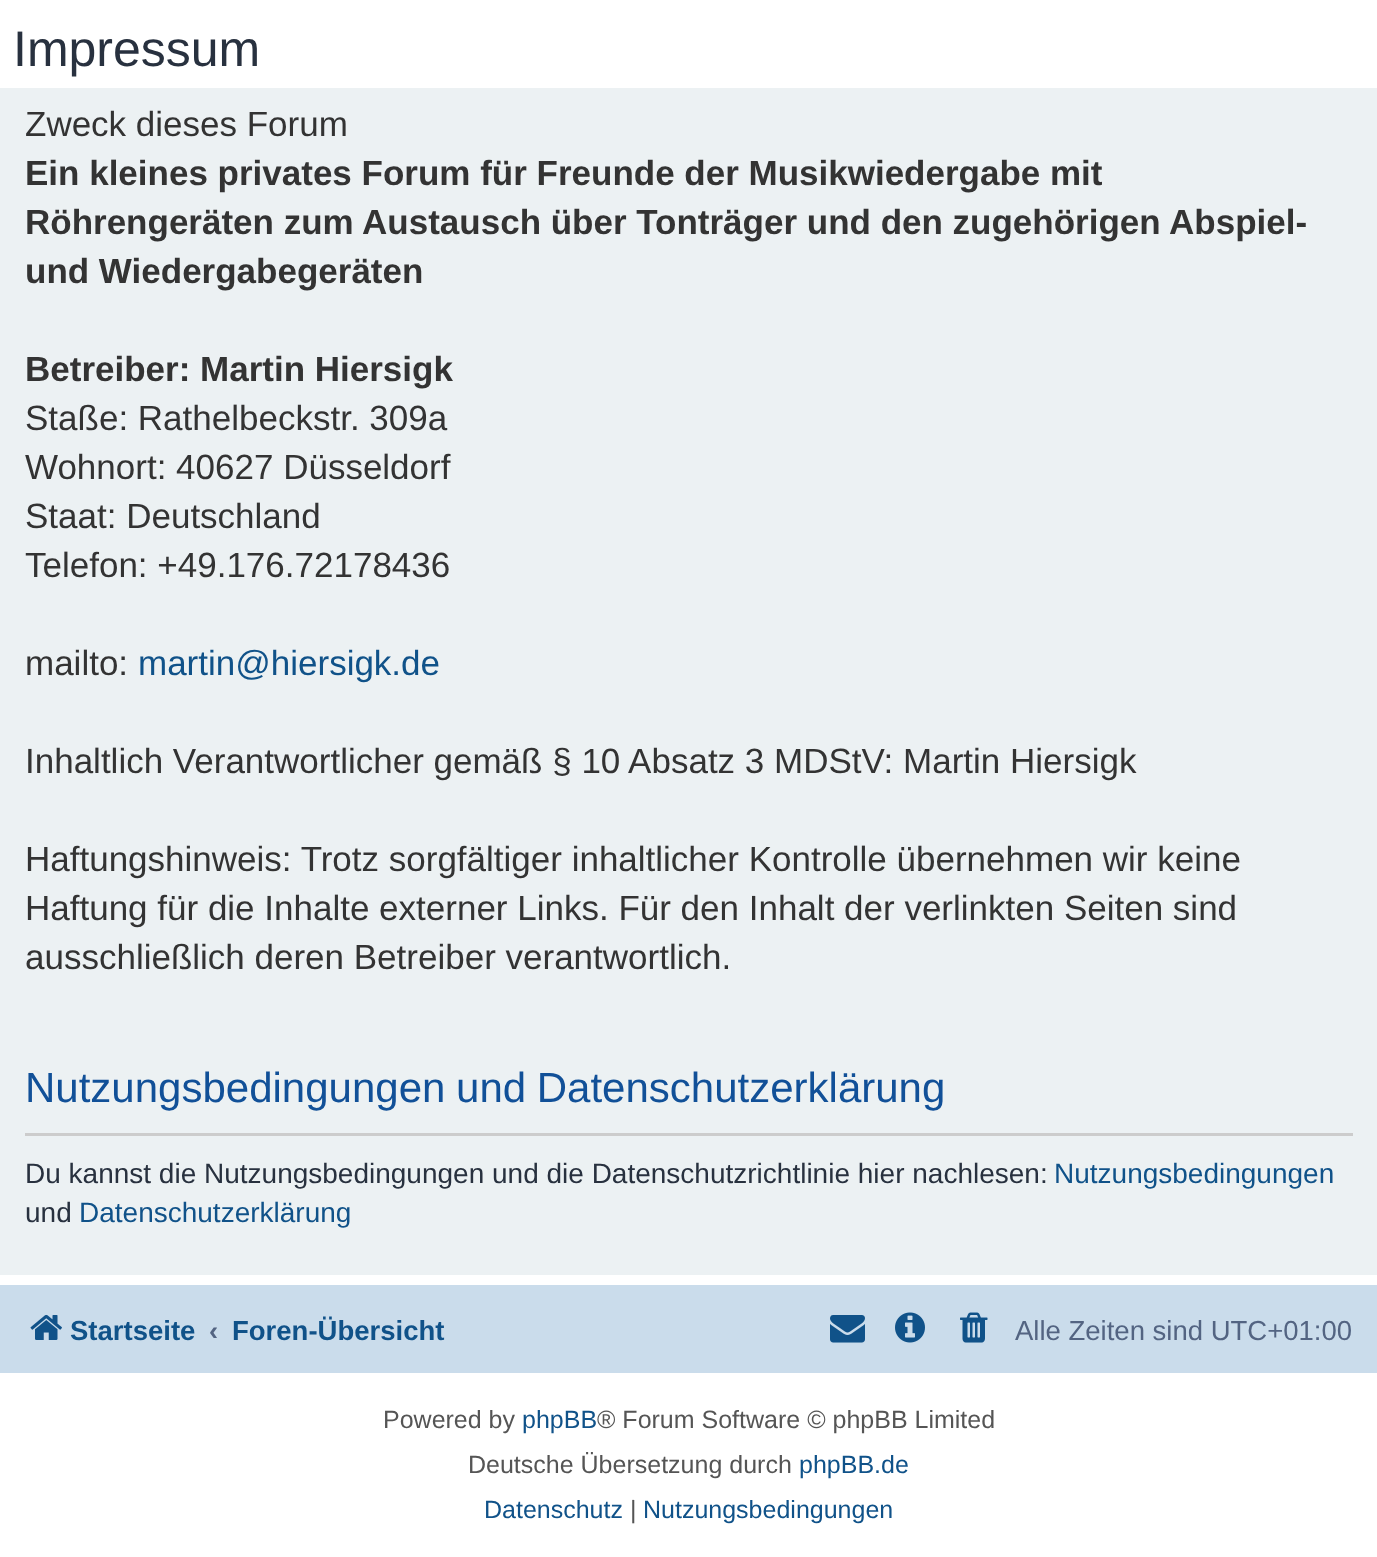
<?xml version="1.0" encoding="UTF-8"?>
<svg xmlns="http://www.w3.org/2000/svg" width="1377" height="1557">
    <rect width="100%" height="100%" fill="#FFFFFF"/>
    <text x="13" y="66" font-family="Liberation Sans" font-size="50" fill="#28313F">Impressum</text>
    <rect x="0" y="88" width="1377" height="1187" fill="#ECF1F3"/>
    <text x="25" y="136" font-family="Liberation Sans" font-size="35" fill="#333333">Zweck dieses Forum</text>
    <text font-family="Liberation Sans" font-size="35" font-weight="700" fill="#333333">
        <tspan x="25" y="185">Ein kleines privates Forum für Freunde der Musikwiedergabe mit</tspan>
        <tspan x="25" y="234">Röhrengeräten zum Austausch über Tonträger und den zugehörigen Abspiel-</tspan>
        <tspan x="25" y="283">und Wiedergabegeräten</tspan>
    </text>
    <text x="25" y="381" font-family="Liberation Sans" font-size="35" font-weight="700" fill="#333333">Betreiber: Martin Hiersigk</text>
    <text font-family="Liberation Sans" font-size="35" fill="#333333">
        <tspan x="25" y="430">Staße: Rathelbeckstr. 309a</tspan>
        <tspan x="25" y="479">Wohnort: 40627 Düsseldorf</tspan>
        <tspan x="25" y="528">Staat: Deutschland</tspan>
        <tspan x="25" y="577">Telefon: +49.176.72178436</tspan>
    </text>
    <text x="25" y="675" font-family="Liberation Sans" font-size="35" fill="#333333">mailto:</text>
    <text x="138" y="675" font-family="Liberation Sans" font-size="35" fill="#105289">martin@hiersigk.de</text>
    <text x="25" y="773" font-family="Liberation Sans" font-size="35" fill="#333333">Inhaltlich Verantwortlicher gemäß § 10 Absatz 3 MDStV: Martin Hiersigk</text>
    <text font-family="Liberation Sans" font-size="35" fill="#333333">
        <tspan x="25" y="871">Haftungshinweis: Trotz sorgfältiger inhaltlicher Kontrolle übernehmen wir keine</tspan>
        <tspan x="25" y="920">Haftung für die Inhalte externer Links. Für den Inhalt der verlinkten Seiten sind</tspan>
        <tspan x="25" y="969">ausschließlich deren Betreiber verantwortlich.</tspan>
    </text>
    <rect x="25" y="1133" width="1328" height="3" fill="#CCCCCC"/>
    <text x="25" y="1102" word-spacing="-1" font-family="Liberation Sans" font-size="42" fill="#115098">Nutzungsbedingungen und Datenschutzerklärung</text>
    <text x="25" y="1183" font-family="Liberation Sans" font-size="28" fill="#28313F">Du kannst die Nutzungsbedingungen und die Datenschutzrichtlinie hier nachlesen:</text>
    <text x="1054" y="1183" font-family="Liberation Sans" font-size="28" fill="#105289">Nutzungsbedingungen</text>
    <text x="25" y="1222" font-family="Liberation Sans" font-size="28" fill="#28313F">und</text>
    <text x="79" y="1222" font-family="Liberation Sans" font-size="28" fill="#105289">Datenschutzerklärung</text>
    <rect x="0" y="1285" width="1377" height="88" fill="#CADCEB"/>
    <image x="30" y="1314" width="32" height="26" href="img_01.png"/>
    <text x="70" y="1340" font-family="Liberation Sans" font-size="27.5" font-weight="700" fill="#105289">Startseite</text>
    <text x="209" y="1340" font-family="Liberation Sans" font-size="27.5" font-weight="700" fill="#536482">‹</text>
    <text x="232" y="1340" font-family="Liberation Sans" font-size="27.5" font-weight="700" fill="#105289">Foren-Übersicht</text>
    <image x="830" y="1315" width="35" height="28" href="img_02.png"/>
    <image x="895" y="1312" width="30" height="31" href="img_03.png"/>
    <image x="960" y="1312" width="28" height="31" href="img_04.png"/>
    <text x="1015" y="1340" font-family="Liberation Sans" font-size="27.5" fill="#536482">Alle Zeiten sind UTC+01:00</text>
    <text x="383" y="1428" font-family="Liberation Sans" font-size="25" fill="#555555">Powered by</text>
    <text x="522" y="1428" font-family="Liberation Sans" font-size="25" fill="#105289">phpBB</text>
    <text x="597" y="1428" font-family="Liberation Sans" font-size="25" fill="#555555">® Forum Software © phpBB Limited</text>
    <text x="468" y="1473" font-family="Liberation Sans" font-size="25" fill="#555555">Deutsche Übersetzung durch</text>
    <text x="799" y="1473" font-family="Liberation Sans" font-size="25" fill="#105289">phpBB.de</text>
    <text x="484" y="1518" font-family="Liberation Sans" font-size="25" fill="#105289">Datenschutz</text>
    <text x="630" y="1518" font-family="Liberation Sans" font-size="25" fill="#555555">|</text>
    <text x="643" y="1518" font-family="Liberation Sans" font-size="25" fill="#105289">Nutzungsbedingungen</text>
</svg>
